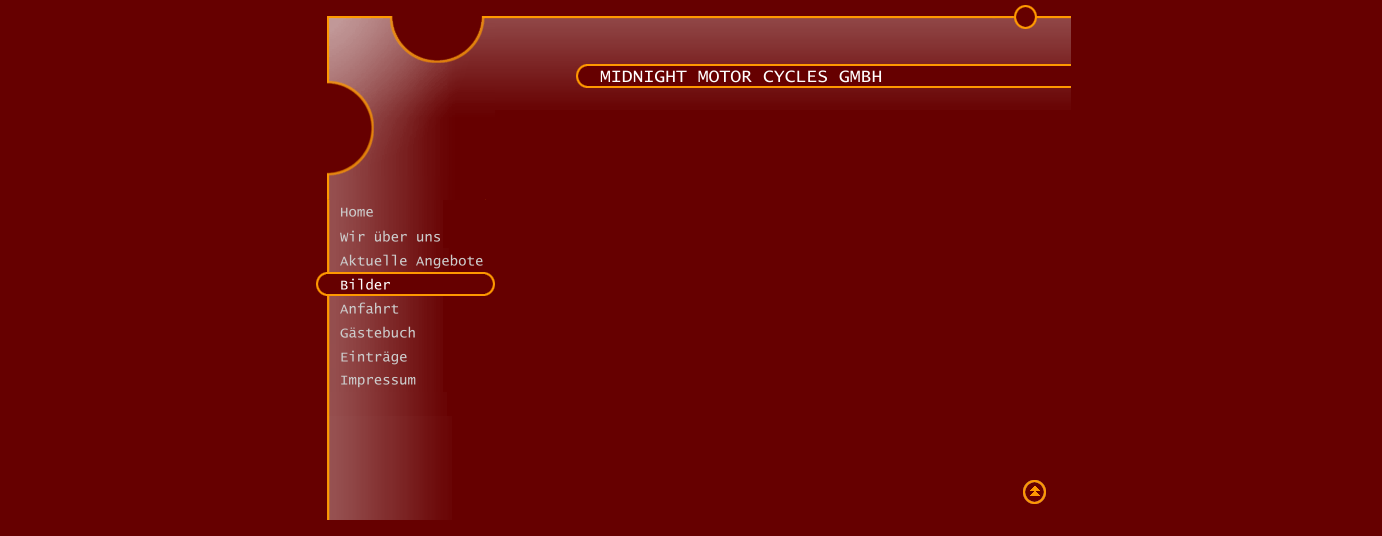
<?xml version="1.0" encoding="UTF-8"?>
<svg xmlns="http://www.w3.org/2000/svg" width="1382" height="536">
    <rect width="100%" height="100%" fill="#660000"/>
    <image x="327" y="416" width="125" height="104" href="img_01.png"/>
    <image x="327" y="16" width="120" height="72" href="img_02.png"/>
    <image x="447" y="16" width="48" height="72" href="img_03.png"/>
    <image x="327" y="88" width="168" height="88" href="img_04.png"/>
    <image x="327" y="176" width="159" height="24" href="img_05.png"/>
    <image x="327" y="200" width="116" height="24" href="img_06.png"/>
    <image x="327" y="224" width="116" height="24" href="img_07.png"/>
    <image x="327" y="248" width="156" height="24" href="img_08.png"/>
    <image x="316" y="272" width="179" height="24" href="img_09.png"/>
    <image x="327" y="296" width="116" height="24" href="img_10.png"/>
    <image x="327" y="320" width="116" height="24" href="img_11.png"/>
    <image x="327" y="344" width="116" height="24" href="img_12.png"/>
    <image x="327" y="368" width="116" height="24" href="img_13.png"/>
    <image x="327" y="392" width="120" height="24" href="img_14.png"/>
    <image x="495" y="16" width="80" height="94" href="img_15.png"/>
    <image x="575" y="16" width="432" height="48" href="img_16.png"/>
    <image x="1007" y="5" width="64" height="59" href="img_17.png"/>
    <image x="575" y="64" width="496" height="24" href="img_18.png"/>
    <image x="575" y="88" width="496" height="22" href="img_19.png"/>
    <image x="1023" y="480" width="23" height="24" href="img_20.png"/>
</svg>
